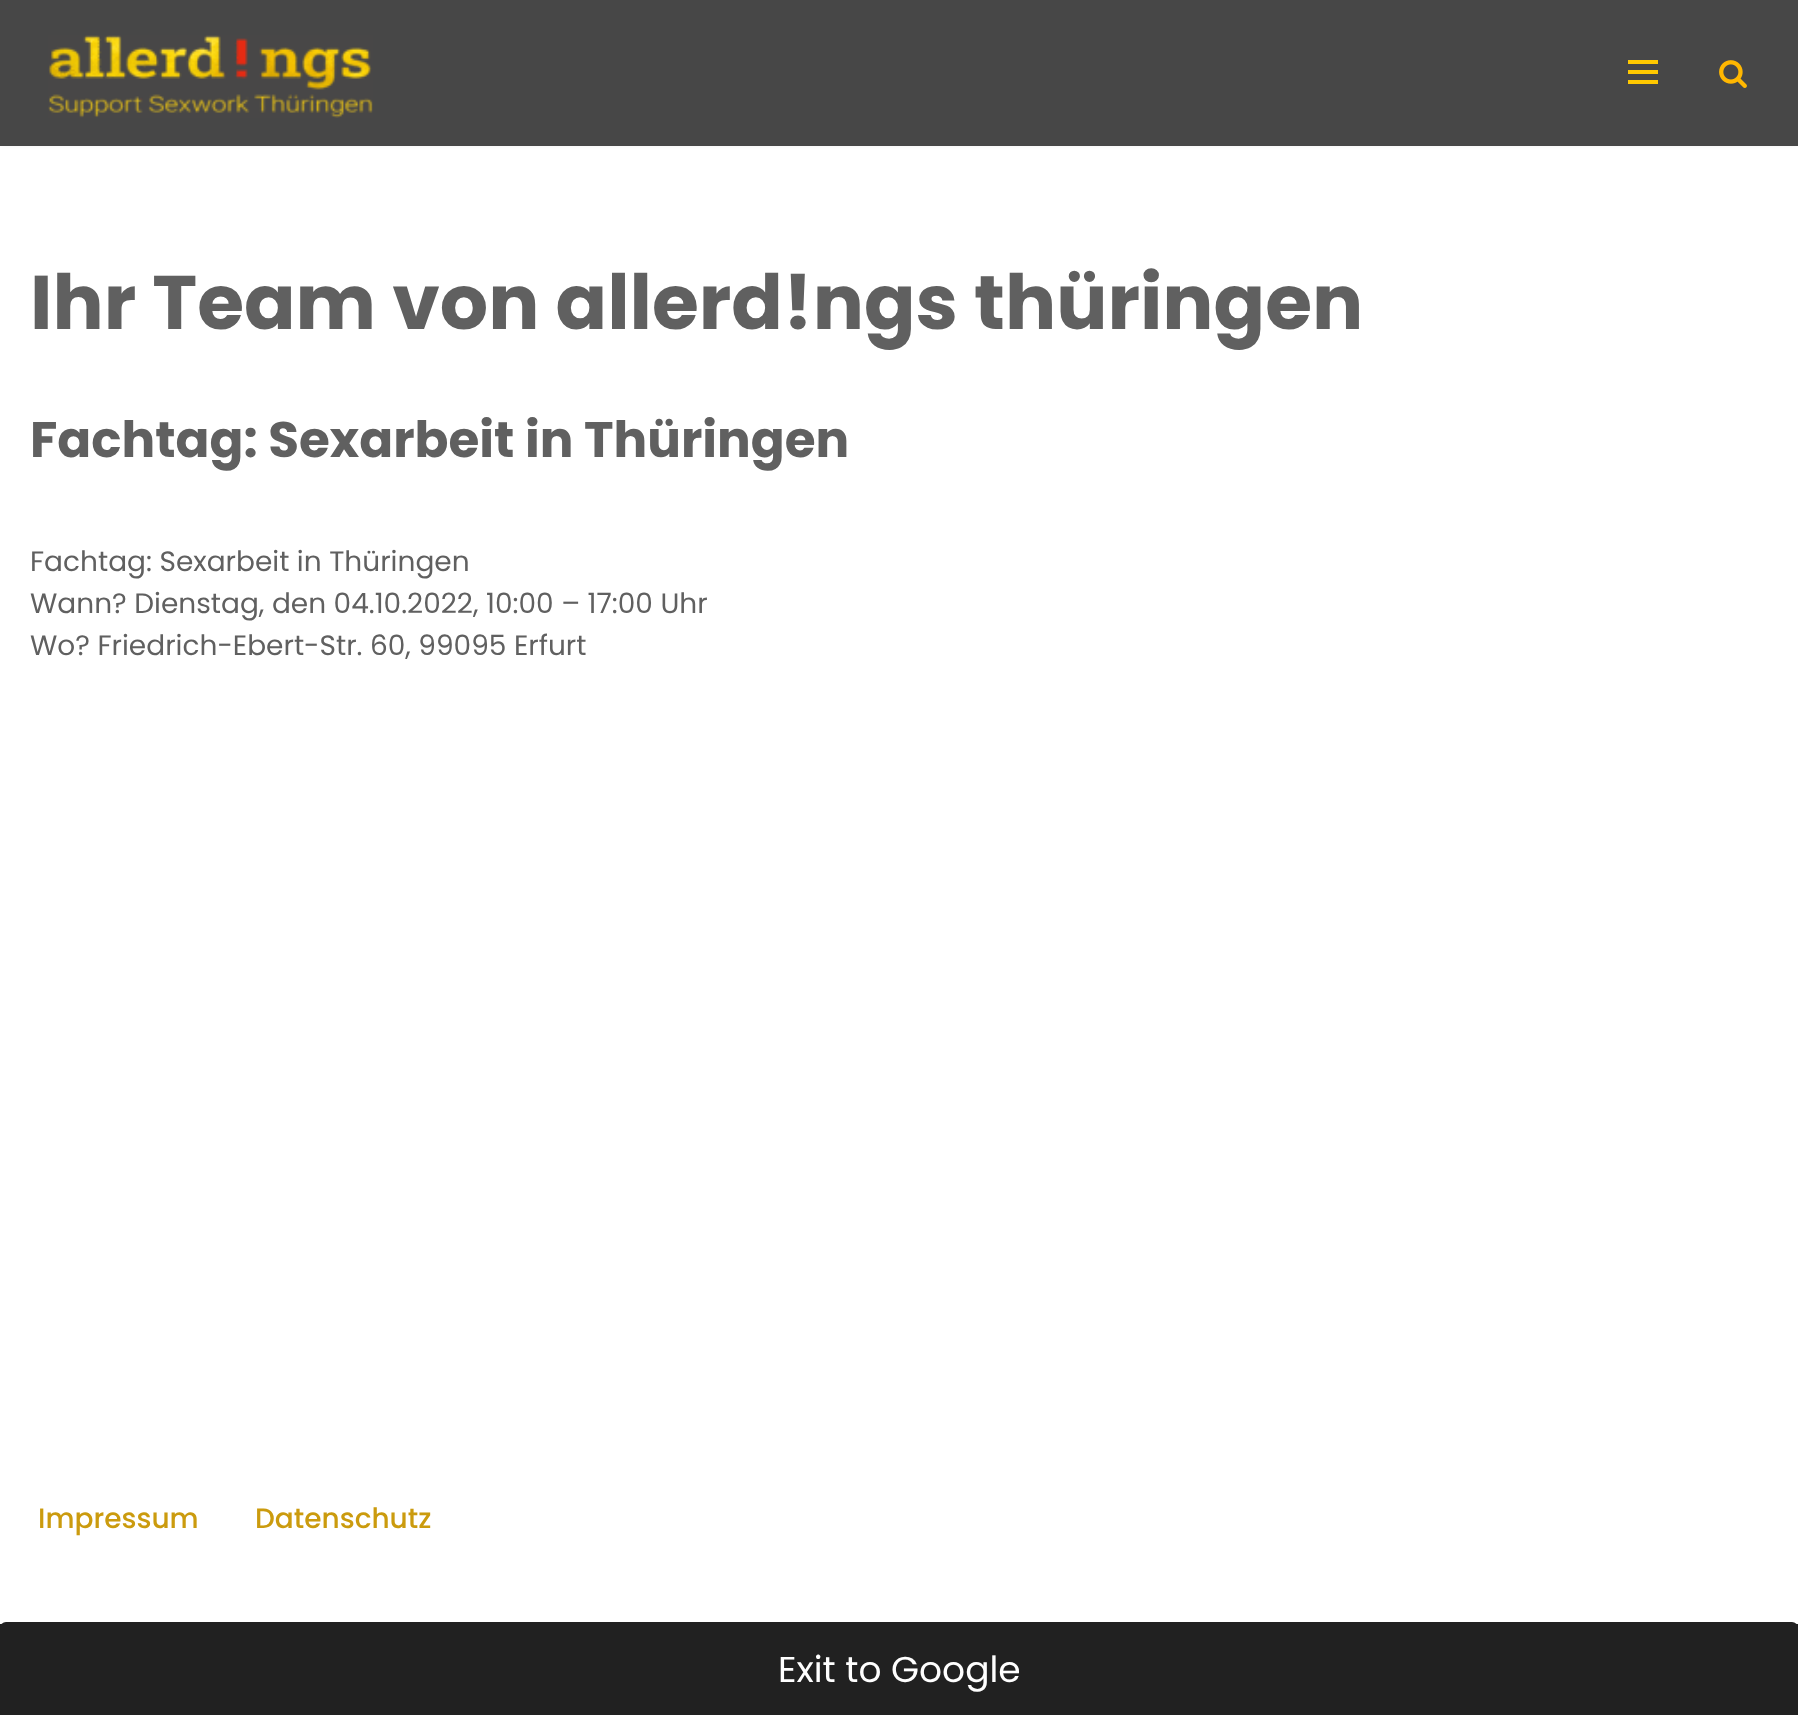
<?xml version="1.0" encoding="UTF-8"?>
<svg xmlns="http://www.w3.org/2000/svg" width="1798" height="1715">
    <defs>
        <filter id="blur1" x="-50%" y="-200%" width="200%" height="500%"><feGaussianBlur stdDeviation="3"/></filter>
    </defs>
    <rect width="100%" height="100%" fill="#FFFFFF"/>
    <rect x="0" y="-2" width="1798" height="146" fill="#000000" fill-opacity="0.1" filter="url(#blur1)"/>
    <rect x="0" y="0" width="1798" height="146" fill="#474747"/>
    <image x="48" y="35" width="325" height="83" href="img_01.png"/>
    <rect x="1628" y="60" width="30" height="4" fill="#FFC800"/>
    <rect x="1628" y="70" width="30" height="4" fill="#FFC800"/>
    <rect x="1628" y="80" width="30" height="4" fill="#FFC800"/>
    <image x="1719" y="60" width="28" height="28" href="img_02.png"/>
    <text x="30" y="329" font-family="Poppins" font-size="76" font-weight="700" fill="#606060">Ihr Team von allerd!ngs thüringen</text>
    <text x="30" y="457" font-family="Poppins" font-size="50" font-weight="700" fill="#606060">Fachtag: Sexarbeit in Thüringen</text>
    <text font-family="Poppins" font-size="28" fill="#606060">
        <tspan x="30" y="571">Fachtag: Sexarbeit in Thüringen</tspan>
        <tspan x="30" y="613">Wann? Dienstag, den 04.10.2022, 10:00 – 17:00 Uhr</tspan>
        <tspan x="30" y="655">Wo? Friedrich-Ebert-Str. 60, 99095 Erfurt</tspan>
    </text>
    <text x="38" y="1528" font-family="Poppins" font-size="28" font-weight="500" fill="#CB9B0E">Impressum</text>
    <text x="255" y="1528" font-family="Poppins" font-size="28" font-weight="500" fill="#CB9B0E">Datenschutz</text>
    <rect x="0" y="1624" width="1798" height="4" fill="#212121"/>
    <rect x="0" y="1710" width="1798" height="5" fill="#212121"/>
    <rect x="0" y="1622" width="1798" height="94" rx="6" fill="#212121"/>
    <text x="778" y="1682" font-family="Poppins" font-size="36" fill="#FFFFFF">Exit to Google</text>
</svg>
